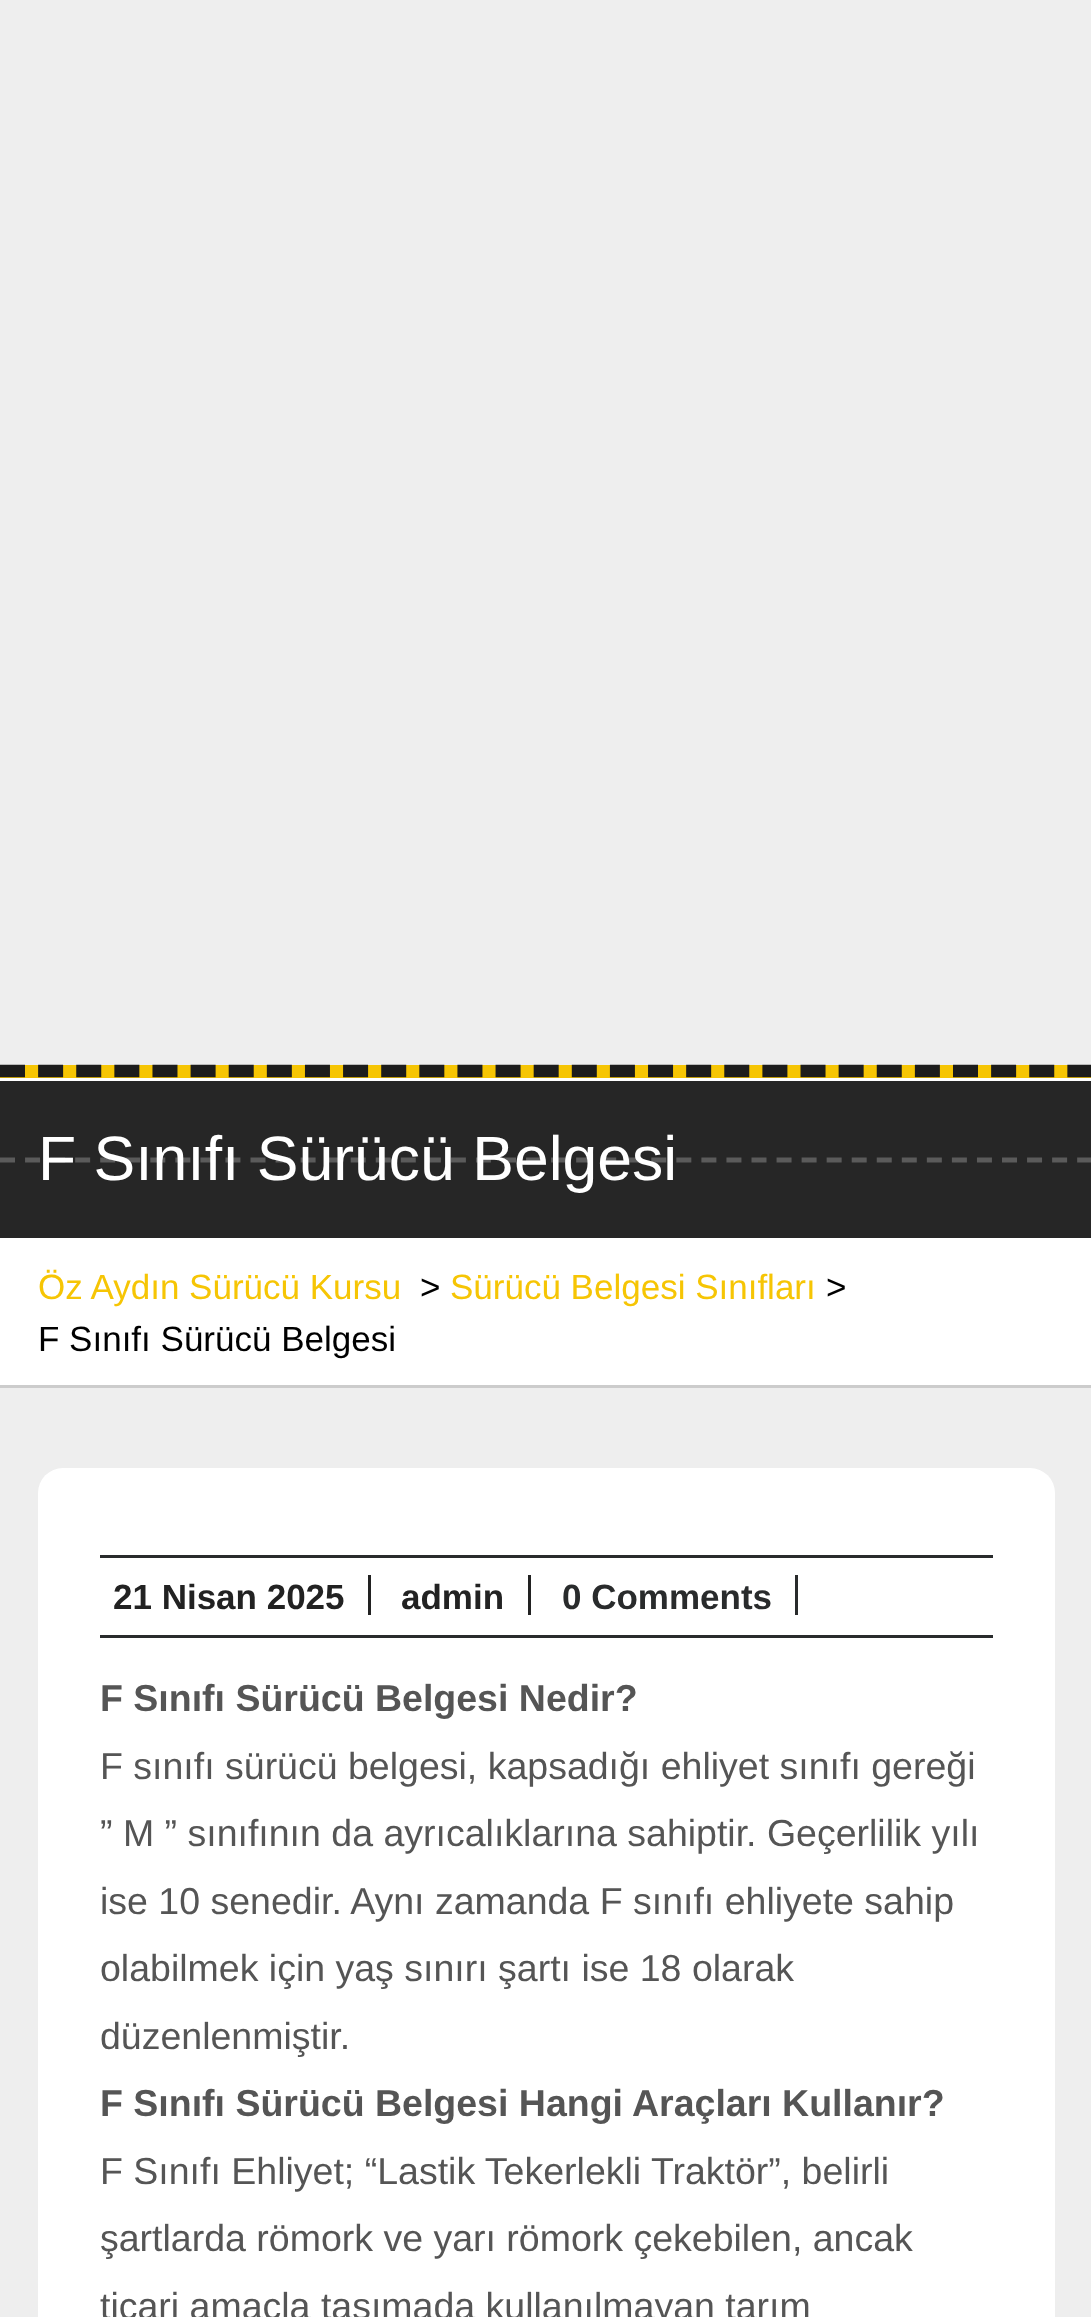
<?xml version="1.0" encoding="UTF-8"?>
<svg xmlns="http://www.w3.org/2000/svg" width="1091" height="2317">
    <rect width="100%" height="100%" fill="#EEEEEE"/>
    <rect x="0" y="1065" width="1091" height="13" fill="#F6C504"/>
    <path d="M 0 1071 H 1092.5" fill="none" stroke="#1C1C1C" stroke-width="12.5" stroke-dasharray="25 13.12"/>
    <rect x="0" y="1081" width="1091" height="157" fill="#262626"/>
    <rect x="0" y="1078" width="1091" height="3" fill="#FFFFFF"/>
    <path d="M 0 1160 H 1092.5" fill="none" stroke="#5B5B5B" stroke-width="5" stroke-dasharray="15 10.05"/>
    <text x="38" y="1180" font-family="Liberation Sans" font-size="62.5" fill="#FFFFFF">F Sınıfı Sürücü Belgesi</text>
    <rect x="0" y="1238" width="1091" height="147" fill="#FFFFFF"/>
    <rect x="0" y="1385" width="1091" height="3" fill="#CCCCCC"/>
    <text x="38" y="1299" font-family="Liberation Sans" font-size="35" fill="#F6C504">Öz Aydın Sürücü Kursu</text>
    <text x="420" y="1299" font-family="Liberation Sans" font-size="35" fill="#000000">&gt;</text>
    <text x="450" y="1299" font-family="Liberation Sans" font-size="35" fill="#F6C504">Sürücü Belgesi Sınıfları</text>
    <text x="826" y="1299" font-family="Liberation Sans" font-size="35" fill="#000000">&gt;</text>
    <text x="38" y="1351" font-family="Liberation Sans" font-size="35" fill="#000000">F Sınıfı Sürücü Belgesi</text>
    <rect x="38" y="1468" width="1017" height="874" rx="25" fill="#FFFFFF"/>
    <rect x="100" y="1555" width="893" height="3" fill="#292B2C"/>
    <rect x="100" y="1635" width="893" height="3" fill="#292B2C"/>
    <text x="113" y="1609" font-family="Liberation Sans" font-size="35" font-weight="700" fill="#222222">21 Nisan 2025</text>
    <rect x="368" y="1575" width="3" height="40" fill="#222222"/>
    <text x="401" y="1609" font-family="Liberation Sans" font-size="35" font-weight="700" fill="#222222">admin</text>
    <rect x="528" y="1575" width="3" height="40" fill="#222222"/>
    <text x="562" y="1609" font-family="Liberation Sans" font-size="35" font-weight="700" fill="#292B2C">0 Comments</text>
    <rect x="795" y="1575" width="3" height="40" fill="#292B2C"/>
    <text x="100" y="1711" font-family="Liberation Sans" font-size="37.5" font-weight="700" fill="#555555">F Sınıfı Sürücü Belgesi Nedir?</text>
    <text font-family="Liberation Sans" font-size="37.5" fill="#555555">
        <tspan x="100" y="1779">F sınıfı sürücü belgesi, kapsadığı ehliyet sınıfı gereği</tspan>
        <tspan x="100" y="1846">” M ” sınıfının da ayrıcalıklarına sahiptir. Geçerlilik yılı</tspan>
        <tspan x="100" y="1914">ise 10 senedir. Aynı zamanda F sınıfı ehliyete sahip</tspan>
        <tspan x="100" y="1981">olabilmek için yaş sınırı şartı ise 18 olarak</tspan>
        <tspan x="100" y="2049">düzenlenmiştir.</tspan>
    </text>
    <text x="100" y="2116" font-family="Liberation Sans" font-size="37.5" font-weight="700" fill="#555555">F Sınıfı Sürücü Belgesi Hangi Araçları Kullanır?</text>
    <text font-family="Liberation Sans" font-size="37.5" fill="#555555">
        <tspan x="100" y="2184">F Sınıfı Ehliyet; “Lastik Tekerlekli Traktör”, belirli</tspan>
        <tspan x="100" y="2251">şartlarda römork ve yarı römork çekebilen, ancak</tspan>
        <tspan x="100" y="2319">ticari amaçla taşımada kullanılmayan tarım</tspan>
    </text>
</svg>
